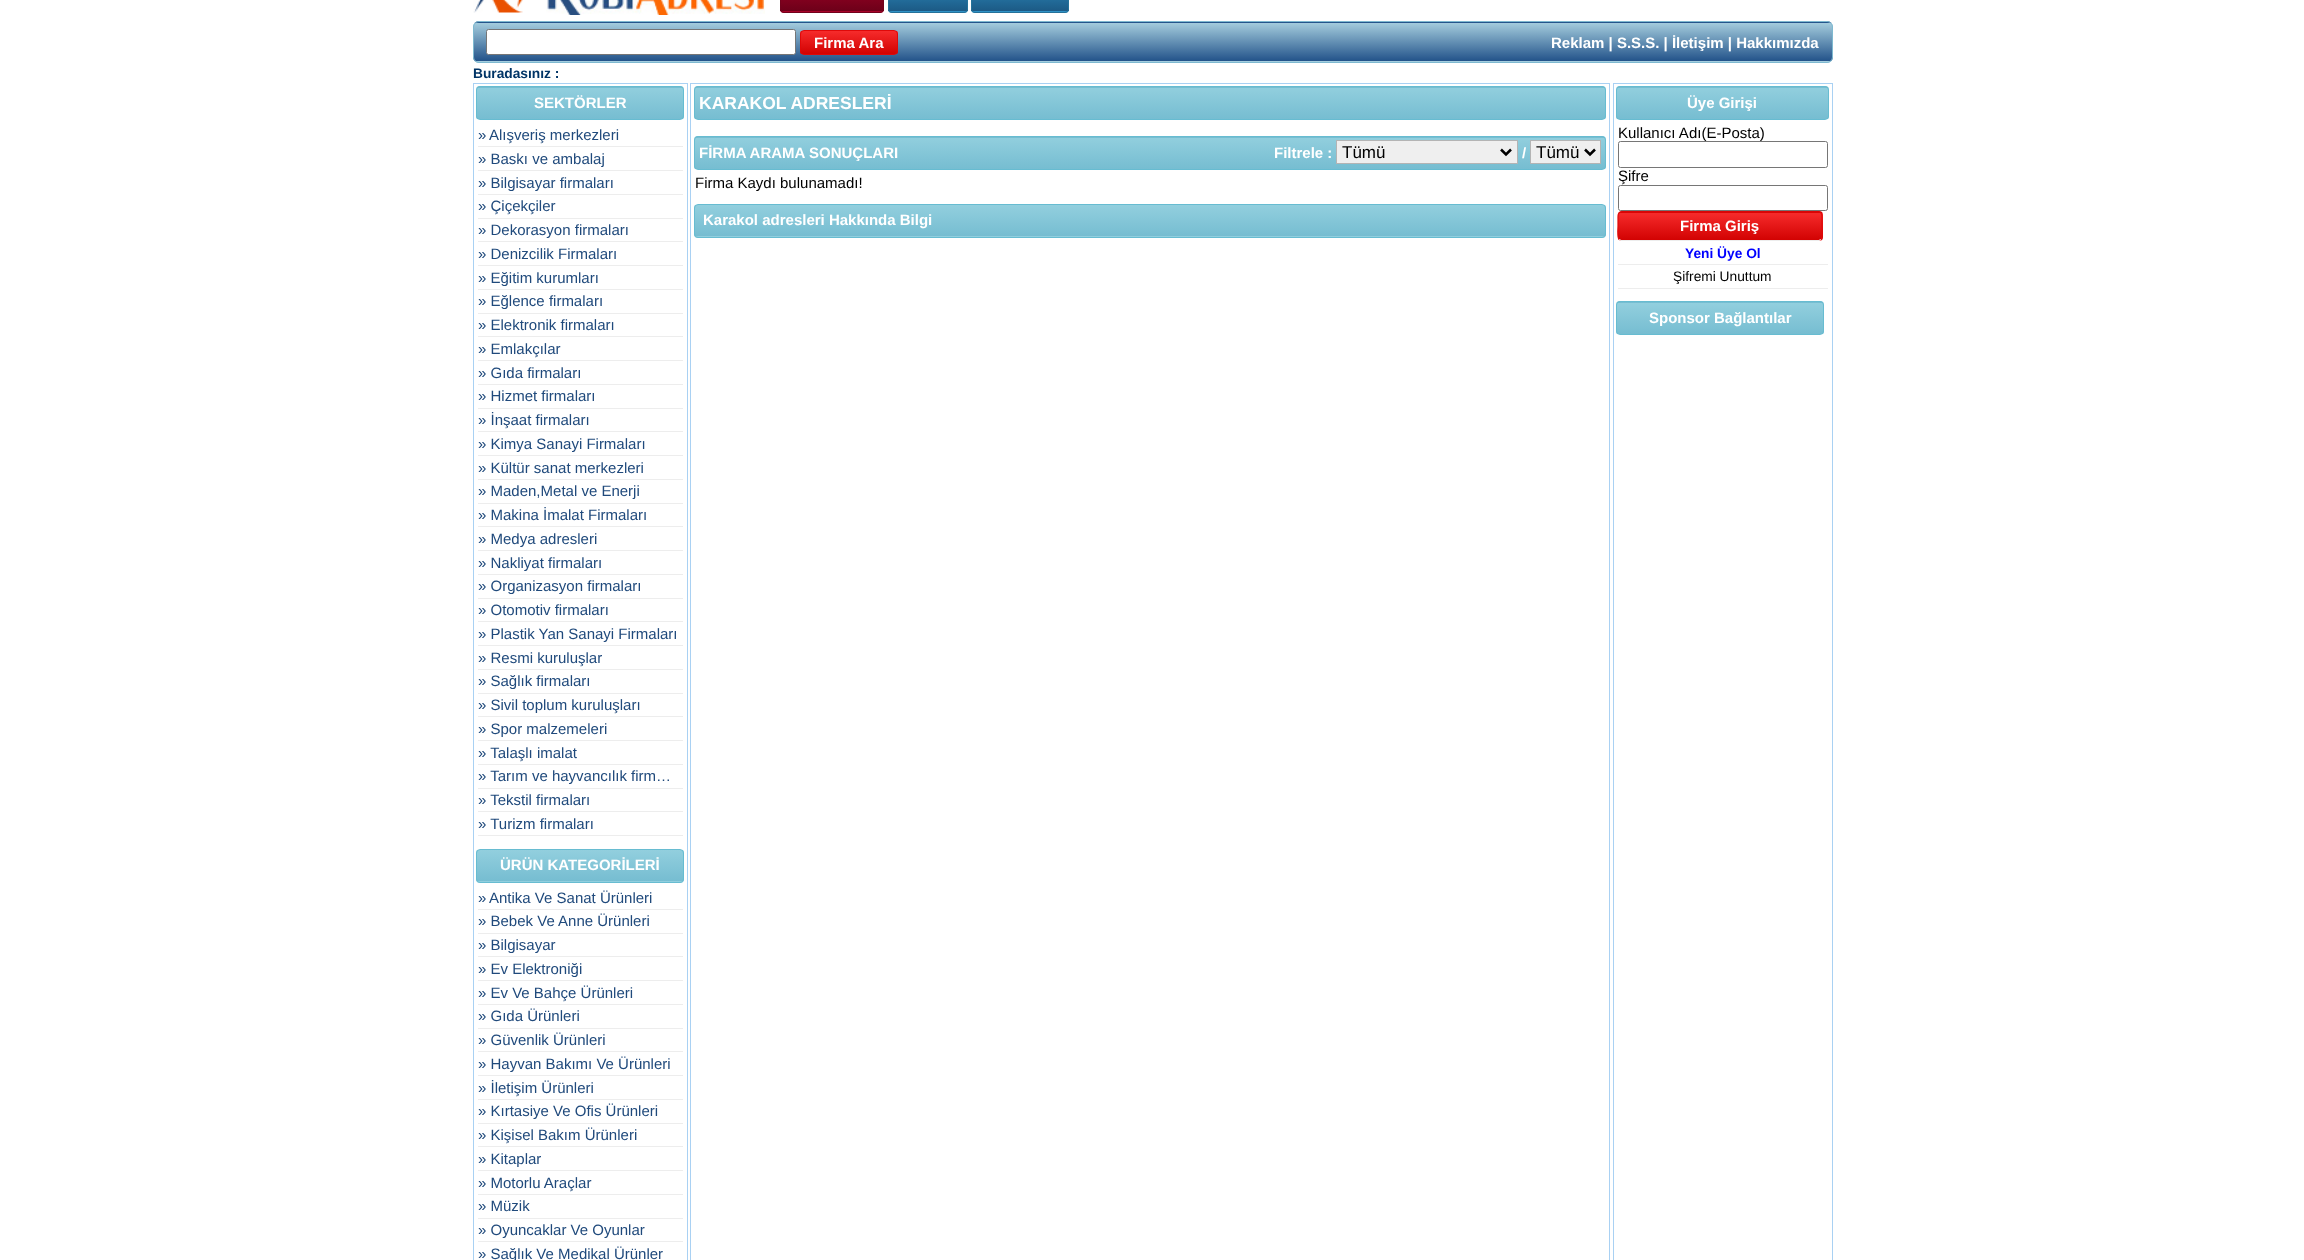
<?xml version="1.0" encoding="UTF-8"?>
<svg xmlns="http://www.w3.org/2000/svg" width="2304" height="1260">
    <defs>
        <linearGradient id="g1" gradientUnits="userSpaceOnUse" x1="832" y1="-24" x2="832" y2="11"><stop offset="0" stop-color="#A90329"/><stop offset="1" stop-color="#6D0019"/></linearGradient>
        <clipPath id="clip1"><rect x="780" y="-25" width="104" height="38" rx="4"/></clipPath>
        <linearGradient id="g2" gradientUnits="userSpaceOnUse" x1="832" y1="11" x2="832" y2="46"><stop offset="0" stop-color="#A90329"/><stop offset="1" stop-color="#6D0019"/></linearGradient>
        <linearGradient id="g3" gradientUnits="userSpaceOnUse" x1="928" y1="-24" x2="928" y2="11"><stop offset="0" stop-color="#3093C7"/><stop offset="1" stop-color="#1C5A85"/></linearGradient>
        <clipPath id="clip2"><rect x="888" y="-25" width="80" height="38" rx="4"/></clipPath>
        <linearGradient id="g4" gradientUnits="userSpaceOnUse" x1="928" y1="11" x2="928" y2="46"><stop offset="0" stop-color="#3093C7"/><stop offset="1" stop-color="#1C5A85"/></linearGradient>
        <linearGradient id="g5" gradientUnits="userSpaceOnUse" x1="1020" y1="-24" x2="1020" y2="11"><stop offset="0" stop-color="#3093C7"/><stop offset="1" stop-color="#1C5A85"/></linearGradient>
        <clipPath id="clip3"><rect x="971" y="-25" width="98" height="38" rx="4"/></clipPath>
        <linearGradient id="g6" gradientUnits="userSpaceOnUse" x1="1020" y1="11" x2="1020" y2="46"><stop offset="0" stop-color="#3093C7"/><stop offset="1" stop-color="#1C5A85"/></linearGradient>
        <clipPath id="clip4"><rect x="473" y="21" width="1360" height="42" rx="6"/></clipPath>
        <linearGradient id="g7" gradientUnits="userSpaceOnUse" x1="1153" y1="-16" x2="1153" y2="23"><stop offset="0" stop-color="#A7CFDF"/><stop offset="1" stop-color="#23538A"/></linearGradient>
        <linearGradient id="g8" gradientUnits="userSpaceOnUse" x1="1153" y1="22" x2="1153" y2="61"><stop offset="0" stop-color="#A7CFDF"/><stop offset="1" stop-color="#23538A"/></linearGradient>
        <linearGradient id="g9" gradientUnits="userSpaceOnUse" x1="1153" y1="61" x2="1153" y2="100"><stop offset="0" stop-color="#A7CFDF"/><stop offset="1" stop-color="#23538A"/></linearGradient>
        <clipPath id="clip5"><rect x="800" y="30" width="98" height="25" rx="4"/></clipPath>
        <linearGradient id="g10" gradientUnits="userSpaceOnUse" x1="849" y1="31" x2="849" y2="54"><stop offset="0" stop-color="#F62B2B"/><stop offset="1" stop-color="#D20202"/></linearGradient>
        <clipPath id="clip6"><rect x="476" y="86" width="208" height="34" rx="4"/></clipPath>
        <linearGradient id="g11" gradientUnits="userSpaceOnUse" x1="580" y1="56" x2="580" y2="88"><stop offset="0" stop-color="#92CFDE"/><stop offset="1" stop-color="#76BDD1"/></linearGradient>
        <linearGradient id="g12" gradientUnits="userSpaceOnUse" x1="580" y1="87" x2="580" y2="119"><stop offset="0" stop-color="#92CFDE"/><stop offset="1" stop-color="#76BDD1"/></linearGradient>
        <clipPath id="clip7"><rect x="476" y="849" width="208" height="34" rx="4"/></clipPath>
        <linearGradient id="g13" gradientUnits="userSpaceOnUse" x1="580" y1="850" x2="580" y2="881"><stop offset="0" stop-color="#92CFDE"/><stop offset="1" stop-color="#76BDD1"/></linearGradient>
        <linearGradient id="g14" gradientUnits="userSpaceOnUse" x1="580" y1="881" x2="580" y2="913"><stop offset="0" stop-color="#92CFDE"/><stop offset="1" stop-color="#76BDD1"/></linearGradient>
        <clipPath id="clip8"><rect x="694" y="86" width="912" height="34" rx="4"/></clipPath>
        <linearGradient id="g15" gradientUnits="userSpaceOnUse" x1="1150" y1="56" x2="1150" y2="88"><stop offset="0" stop-color="#92CFDE"/><stop offset="1" stop-color="#76BDD1"/></linearGradient>
        <linearGradient id="g16" gradientUnits="userSpaceOnUse" x1="1150" y1="87" x2="1150" y2="119"><stop offset="0" stop-color="#92CFDE"/><stop offset="1" stop-color="#76BDD1"/></linearGradient>
        <clipPath id="clip9"><rect x="694" y="136" width="912" height="34" rx="4"/></clipPath>
        <linearGradient id="g17" gradientUnits="userSpaceOnUse" x1="1150" y1="106" x2="1150" y2="138"><stop offset="0" stop-color="#92CFDE"/><stop offset="1" stop-color="#76BDD1"/></linearGradient>
        <linearGradient id="g18" gradientUnits="userSpaceOnUse" x1="1150" y1="137" x2="1150" y2="169"><stop offset="0" stop-color="#92CFDE"/><stop offset="1" stop-color="#76BDD1"/></linearGradient>
        <clipPath id="clip10"><rect x="694" y="204" width="912" height="34" rx="4"/></clipPath>
        <linearGradient id="g19" gradientUnits="userSpaceOnUse" x1="1150" y1="205" x2="1150" y2="236"><stop offset="0" stop-color="#92CFDE"/><stop offset="1" stop-color="#76BDD1"/></linearGradient>
        <linearGradient id="g20" gradientUnits="userSpaceOnUse" x1="1150" y1="236" x2="1150" y2="268"><stop offset="0" stop-color="#92CFDE"/><stop offset="1" stop-color="#76BDD1"/></linearGradient>
        <clipPath id="clip11"><rect x="1616" y="86" width="213" height="34" rx="4"/></clipPath>
        <linearGradient id="g21" gradientUnits="userSpaceOnUse" x1="1723" y1="56" x2="1723" y2="88"><stop offset="0" stop-color="#92CFDE"/><stop offset="1" stop-color="#76BDD1"/></linearGradient>
        <linearGradient id="g22" gradientUnits="userSpaceOnUse" x1="1723" y1="87" x2="1723" y2="119"><stop offset="0" stop-color="#92CFDE"/><stop offset="1" stop-color="#76BDD1"/></linearGradient>
        <clipPath id="clip12"><rect x="1618" y="211" width="205" height="30" rx="4"/></clipPath>
        <linearGradient id="g23" gradientUnits="userSpaceOnUse" x1="1720" y1="185" x2="1720" y2="213"><stop offset="0" stop-color="#F62B2B"/><stop offset="1" stop-color="#D20202"/></linearGradient>
        <linearGradient id="g24" gradientUnits="userSpaceOnUse" x1="1720" y1="213" x2="1720" y2="240"><stop offset="0" stop-color="#F62B2B"/><stop offset="1" stop-color="#D20202"/></linearGradient>
        <linearGradient id="g25" gradientUnits="userSpaceOnUse" x1="1720" y1="240" x2="1720" y2="268"><stop offset="0" stop-color="#F62B2B"/><stop offset="1" stop-color="#D20202"/></linearGradient>
        <clipPath id="clip13"><rect x="1616" y="301" width="208" height="34" rx="4"/></clipPath>
        <linearGradient id="g26" gradientUnits="userSpaceOnUse" x1="1720" y1="271" x2="1720" y2="303"><stop offset="0" stop-color="#92CFDE"/><stop offset="1" stop-color="#76BDD1"/></linearGradient>
        <linearGradient id="g27" gradientUnits="userSpaceOnUse" x1="1720" y1="303" x2="1720" y2="334"><stop offset="0" stop-color="#92CFDE"/><stop offset="1" stop-color="#76BDD1"/></linearGradient>
    </defs>
    <rect width="100%" height="100%" fill="#FFFFFF"/>
    <image x="473" y="0" width="50" height="13" href="img_01.png"/>
    <image x="546" y="0" width="219" height="15" href="img_02.png"/>
    <rect x="780" y="0" width="104" height="11" fill="url(#g1)"/>
    <g clip-path="url(#clip1)">
        <rect x="780" y="11" width="104" height="2" fill="url(#g2)"/>
    </g>
    <rect x="780.5" y="-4.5" width="103" height="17" rx="3.5" fill="none" stroke="#72021C"/>
    <rect x="888" y="0" width="80" height="11" fill="url(#g3)"/>
    <g clip-path="url(#clip2)">
        <rect x="888" y="11" width="80" height="2" fill="url(#g4)"/>
    </g>
    <rect x="888.5" y="-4.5" width="79" height="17" rx="3.5" fill="none" stroke="#25729A"/>
    <rect x="971" y="0" width="98" height="11" fill="url(#g5)"/>
    <g clip-path="url(#clip3)">
        <rect x="971" y="11" width="98" height="2" fill="url(#g6)"/>
    </g>
    <rect x="971.5" y="-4.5" width="97" height="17" rx="3.5" fill="none" stroke="#25729A"/>
    <g clip-path="url(#clip4)">
        <rect x="473" y="21" width="1360" height="2" fill="url(#g7)"/>
        <rect x="473" y="23" width="1360" height="38" fill="url(#g8)"/>
        <rect x="473" y="61" width="1360" height="2" fill="url(#g9)"/>
    </g>
    <rect x="473.5" y="21.5" width="1359" height="41" rx="5.5" fill="none" stroke="#7EB9D0"/>
    <rect x="486.5" y="29.5" width="309" height="25" rx="2" fill="#FFFFFF" stroke="#767676"/>
    <g clip-path="url(#clip5)">
        <rect x="800" y="31" width="98" height="23" fill="url(#g10)"/>
    </g>
    <rect x="800.5" y="30.5" width="97" height="24" rx="3.5" fill="none" stroke="#DF0909"/>
    <text x="814" y="48" font-family="Liberation Sans" font-size="15" font-weight="700" fill="#FFFFFF">Firma Ara</text>
    <text x="1551" y="48" font-family="Liberation Sans" font-size="15" font-weight="700" fill="#FFFFFF">Reklam | S.S.S. | İletişim | Hakkımızda</text>
    <text x="473" y="78" font-family="Liberation Sans" font-size="13.75" font-weight="700" fill="#003466">Buradasınız :</text>
    <rect x="473.5" y="83.5" width="214" height="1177" fill="none" stroke="#A9D1F3"/>
    <g clip-path="url(#clip6)">
        <rect x="476" y="86" width="208" height="2" fill="url(#g11)"/>
        <rect x="476" y="88" width="208" height="31" fill="url(#g12)"/>
    </g>
    <rect x="476.5" y="86.5" width="207" height="33" rx="3.5" fill="none" stroke="#67BCD1"/>
    <text x="534" y="108" font-family="Liberation Sans" font-size="15" font-weight="700" fill="#FFFFFF">SEKTÖRLER</text>
    <rect x="478" y="146" width="205" height="1" fill="#EDEDED"/>
    <text x="478" y="140" font-family="Liberation Sans" font-size="15" fill="#204A7C">»</text>
    <text x="489" y="140" font-family="Liberation Sans" font-size="15" fill="#204A7C">Alışveriş merkezleri</text>
    <rect x="478" y="170" width="205" height="1" fill="#EDEDED"/>
    <text x="478" y="164" font-family="Liberation Sans" font-size="15" fill="#204A7C">» Baskı ve ambalaj</text>
    <rect x="478" y="194" width="205" height="1" fill="#EDEDED"/>
    <text x="478" y="188" font-family="Liberation Sans" font-size="15" fill="#204A7C">» Bilgisayar firmaları</text>
    <rect x="478" y="218" width="205" height="1" fill="#EDEDED"/>
    <text x="478" y="211" font-family="Liberation Sans" font-size="15" fill="#204A7C">» Çiçekçiler</text>
    <rect x="478" y="241" width="205" height="1" fill="#EDEDED"/>
    <text x="478" y="235" font-family="Liberation Sans" font-size="15" fill="#204A7C">» Dekorasyon firmaları</text>
    <rect x="478" y="265" width="205" height="1" fill="#EDEDED"/>
    <text x="478" y="259" font-family="Liberation Sans" font-size="15" fill="#204A7C">» Denizcilik Firmaları</text>
    <rect x="478" y="289" width="205" height="1" fill="#EDEDED"/>
    <text x="478" y="283" font-family="Liberation Sans" font-size="15" fill="#204A7C">» Eğitim kurumları</text>
    <rect x="478" y="313" width="205" height="1" fill="#EDEDED"/>
    <text x="478" y="306" font-family="Liberation Sans" font-size="15" fill="#204A7C">» Eğlence firmaları</text>
    <rect x="478" y="336" width="205" height="1" fill="#EDEDED"/>
    <text x="478" y="330" font-family="Liberation Sans" font-size="15" fill="#204A7C">» Elektronik firmaları</text>
    <rect x="478" y="360" width="205" height="1" fill="#EDEDED"/>
    <text x="478" y="354" font-family="Liberation Sans" font-size="15" fill="#204A7C">» Emlakçılar</text>
    <rect x="478" y="384" width="205" height="1" fill="#EDEDED"/>
    <text x="478" y="378" font-family="Liberation Sans" font-size="15" fill="#204A7C">» Gıda firmaları</text>
    <rect x="478" y="408" width="205" height="1" fill="#EDEDED"/>
    <text x="478" y="401" font-family="Liberation Sans" font-size="15" fill="#204A7C">» Hizmet firmaları</text>
    <rect x="478" y="431" width="205" height="1" fill="#EDEDED"/>
    <text x="478" y="425" font-family="Liberation Sans" font-size="15" fill="#204A7C">» İnşaat firmaları</text>
    <rect x="478" y="455" width="205" height="1" fill="#EDEDED"/>
    <text x="478" y="449" font-family="Liberation Sans" font-size="15" fill="#204A7C">» Kimya Sanayi Firmaları</text>
    <rect x="478" y="479" width="205" height="1" fill="#EDEDED"/>
    <text x="478" y="473" font-family="Liberation Sans" font-size="15" fill="#204A7C">» Kültür sanat merkezleri</text>
    <rect x="478" y="503" width="205" height="1" fill="#EDEDED"/>
    <text x="478" y="496" font-family="Liberation Sans" font-size="15" fill="#204A7C">» Maden,Metal ve Enerji</text>
    <rect x="478" y="526" width="205" height="1" fill="#EDEDED"/>
    <text x="478" y="520" font-family="Liberation Sans" font-size="15" fill="#204A7C">» Makina İmalat Firmaları</text>
    <rect x="478" y="550" width="205" height="1" fill="#EDEDED"/>
    <text x="478" y="544" font-family="Liberation Sans" font-size="15" fill="#204A7C">» Medya adresleri</text>
    <rect x="478" y="574" width="205" height="1" fill="#EDEDED"/>
    <text x="478" y="568" font-family="Liberation Sans" font-size="15" fill="#204A7C">» Nakliyat firmaları</text>
    <rect x="478" y="598" width="205" height="1" fill="#EDEDED"/>
    <text x="478" y="591" font-family="Liberation Sans" font-size="15" fill="#204A7C">» Organizasyon firmaları</text>
    <rect x="478" y="621" width="205" height="1" fill="#EDEDED"/>
    <text x="478" y="615" font-family="Liberation Sans" font-size="15" fill="#204A7C">» Otomotiv firmaları</text>
    <rect x="478" y="645" width="205" height="1" fill="#EDEDED"/>
    <text x="478" y="639" font-family="Liberation Sans" font-size="15" fill="#204A7C">» Plastik Yan Sanayi Firmaları</text>
    <rect x="478" y="669" width="205" height="1" fill="#EDEDED"/>
    <text x="478" y="663" font-family="Liberation Sans" font-size="15" fill="#204A7C">» Resmi kuruluşlar</text>
    <rect x="478" y="693" width="205" height="1" fill="#EDEDED"/>
    <text x="478" y="686" font-family="Liberation Sans" font-size="15" fill="#204A7C">» Sağlık firmaları</text>
    <rect x="478" y="716" width="205" height="1" fill="#EDEDED"/>
    <text x="478" y="710" font-family="Liberation Sans" font-size="15" fill="#204A7C">» Sivil toplum kuruluşları</text>
    <rect x="478" y="740" width="205" height="1" fill="#EDEDED"/>
    <text x="478" y="734" font-family="Liberation Sans" font-size="15" fill="#204A7C">» Spor malzemeleri</text>
    <rect x="478" y="764" width="205" height="1" fill="#EDEDED"/>
    <text x="478" y="758" font-family="Liberation Sans" font-size="15" fill="#204A7C">» Talaşlı imalat</text>
    <rect x="478" y="788" width="205" height="1" fill="#EDEDED"/>
    <text x="478" y="781" font-family="Liberation Sans" font-size="15" fill="#204A7C">» Tarım ve hayvancılık firm…</text>
    <rect x="478" y="811" width="205" height="1" fill="#EDEDED"/>
    <text x="478" y="805" font-family="Liberation Sans" font-size="15" fill="#204A7C">» Tekstil firmaları</text>
    <rect x="478" y="835" width="205" height="1" fill="#EDEDED"/>
    <text x="478" y="829" font-family="Liberation Sans" font-size="15" fill="#204A7C">» Turizm firmaları</text>
    <g clip-path="url(#clip7)">
        <rect x="476" y="850" width="208" height="31" fill="url(#g13)"/>
        <rect x="476" y="881" width="208" height="2" fill="url(#g14)"/>
    </g>
    <rect x="476.5" y="849.5" width="207" height="33" rx="3.5" fill="none" stroke="#67BCD1"/>
    <text x="500" y="870" font-family="Liberation Sans" font-size="15" font-weight="700" fill="#FFFFFF">ÜRÜN KATEGORİLERİ</text>
    <rect x="478" y="909" width="205" height="1" fill="#EDEDED"/>
    <text x="478" y="903" font-family="Liberation Sans" font-size="15" fill="#204A7C">»</text>
    <text x="489" y="903" font-family="Liberation Sans" font-size="15" fill="#204A7C">Antika Ve Sanat Ürünleri</text>
    <rect x="478" y="933" width="205" height="1" fill="#EDEDED"/>
    <text x="478" y="926" font-family="Liberation Sans" font-size="15" fill="#204A7C">» Bebek Ve Anne Ürünleri</text>
    <rect x="478" y="956" width="205" height="1" fill="#EDEDED"/>
    <text x="478" y="950" font-family="Liberation Sans" font-size="15" fill="#204A7C">» Bilgisayar</text>
    <rect x="478" y="980" width="205" height="1" fill="#EDEDED"/>
    <text x="478" y="974" font-family="Liberation Sans" font-size="15" fill="#204A7C">» Ev Elektroniği</text>
    <rect x="478" y="1004" width="205" height="1" fill="#EDEDED"/>
    <text x="478" y="998" font-family="Liberation Sans" font-size="15" fill="#204A7C">» Ev Ve Bahçe Ürünleri</text>
    <rect x="478" y="1028" width="205" height="1" fill="#EDEDED"/>
    <text x="478" y="1021" font-family="Liberation Sans" font-size="15" fill="#204A7C">» Gıda Ürünleri</text>
    <rect x="478" y="1051" width="205" height="1" fill="#EDEDED"/>
    <text x="478" y="1045" font-family="Liberation Sans" font-size="15" fill="#204A7C">» Güvenlik Ürünleri</text>
    <rect x="478" y="1075" width="205" height="1" fill="#EDEDED"/>
    <text x="478" y="1069" font-family="Liberation Sans" font-size="15" fill="#204A7C">» Hayvan Bakımı Ve Ürünleri</text>
    <rect x="478" y="1099" width="205" height="1" fill="#EDEDED"/>
    <text x="478" y="1093" font-family="Liberation Sans" font-size="15" fill="#204A7C">» İletişim Ürünleri</text>
    <rect x="478" y="1123" width="205" height="1" fill="#EDEDED"/>
    <text x="478" y="1116" font-family="Liberation Sans" font-size="15" fill="#204A7C">» Kırtasiye Ve Ofis Ürünleri</text>
    <rect x="478" y="1146" width="205" height="1" fill="#EDEDED"/>
    <text x="478" y="1140" font-family="Liberation Sans" font-size="15" fill="#204A7C">» Kişisel Bakım Ürünleri</text>
    <rect x="478" y="1170" width="205" height="1" fill="#EDEDED"/>
    <text x="478" y="1164" font-family="Liberation Sans" font-size="15" fill="#204A7C">» Kitaplar</text>
    <rect x="478" y="1194" width="205" height="1" fill="#EDEDED"/>
    <text x="478" y="1188" font-family="Liberation Sans" font-size="15" fill="#204A7C">» Motorlu Araçlar</text>
    <rect x="478" y="1218" width="205" height="1" fill="#EDEDED"/>
    <text x="478" y="1211" font-family="Liberation Sans" font-size="15" fill="#204A7C">» Müzik</text>
    <rect x="478" y="1241" width="205" height="1" fill="#EDEDED"/>
    <text font-family="Liberation Sans" font-size="15" fill="#204A7C">
        <tspan x="478" y="1235">» Oyuncaklar Ve Oyunlar</tspan>
        <tspan x="478" y="1259">» Sağlık Ve Medikal Ürünler</tspan>
    </text>
    <rect x="690.5" y="83.5" width="919" height="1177" fill="none" stroke="#A9D1F3"/>
    <g clip-path="url(#clip8)">
        <rect x="694" y="86" width="912" height="2" fill="url(#g15)"/>
        <rect x="694" y="88" width="912" height="31" fill="url(#g16)"/>
    </g>
    <rect x="694.5" y="86.5" width="911" height="33" rx="3.5" fill="none" stroke="#67BCD1"/>
    <text x="699" y="109" font-family="Liberation Sans" font-size="17.5" font-weight="700" fill="#FFFFFF">KARAKOL ADRESLERİ</text>
    <g clip-path="url(#clip9)">
        <rect x="694" y="136" width="912" height="2" fill="url(#g17)"/>
        <rect x="694" y="138" width="912" height="31" fill="url(#g18)"/>
    </g>
    <rect x="694.5" y="136.5" width="911" height="33" rx="3.5" fill="none" stroke="#67BCD1"/>
    <text x="699" y="158" font-family="Liberation Sans" font-size="15" font-weight="700" fill="#FFFFFF">FİRMA ARAMA SONUÇLARI</text>
    <text x="1274" y="158" font-family="Liberation Sans" font-size="15" font-weight="700" fill="#FFFFFF">Filtrele :</text>
    <rect x="1336.5" y="140.5" width="181" height="23" fill="#EFEFEF" stroke="#B4B4B4"/>
    <path d="M 1501 149.5 L 1506 154.5 L 1511 149.5" fill="none" stroke="#000000" stroke-width="2.5"/>
    <text x="1342" y="158" font-family="Liberation Sans" font-size="17" fill="#000000">Tümü</text>
    <text x="1522" y="158" font-family="Liberation Sans" font-size="15" font-weight="700" fill="#FFFFFF">/</text>
    <rect x="1530.5" y="140.5" width="70" height="23" fill="#EFEFEF" stroke="#B4B4B4"/>
    <path d="M 1585 149.5 L 1590 154.5 L 1595 149.5" fill="none" stroke="#000000" stroke-width="2.5"/>
    <text x="1536" y="158" font-family="Liberation Sans" font-size="17" fill="#000000">Tümü</text>
    <text x="695" y="188" font-family="Liberation Sans" font-size="15" fill="#000000">Firma Kaydı bulunamadı!</text>
    <g clip-path="url(#clip10)">
        <rect x="694" y="205" width="912" height="31" fill="url(#g19)"/>
        <rect x="694" y="236" width="912" height="2" fill="url(#g20)"/>
    </g>
    <rect x="694.5" y="204.5" width="911" height="33" rx="3.5" fill="none" stroke="#67BCD1"/>
    <text x="703" y="225" font-family="Liberation Sans" font-size="15" font-weight="700" fill="#FFFFFF">Karakol adresleri Hakkında Bilgi</text>
    <rect x="1613.5" y="83.5" width="219" height="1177" fill="none" stroke="#A9D1F3"/>
    <g clip-path="url(#clip11)">
        <rect x="1616" y="86" width="213" height="2" fill="url(#g21)"/>
        <rect x="1616" y="88" width="213" height="31" fill="url(#g22)"/>
    </g>
    <rect x="1616.5" y="86.5" width="212" height="33" rx="3.5" fill="none" stroke="#67BCD1"/>
    <text x="1687" y="108" font-family="Liberation Sans" font-size="15" font-weight="700" fill="#FFFFFF">Üye Girişi</text>
    <text x="1618" y="138" font-family="Liberation Sans" font-size="15" fill="#000000">Kullanıcı Adı(E-Posta)</text>
    <rect x="1618.5" y="141.5" width="209" height="26" rx="2" fill="#FFFFFF" stroke="#767676"/>
    <text x="1618" y="181" font-family="Liberation Sans" font-size="15" fill="#000000">Şifre</text>
    <rect x="1618.5" y="185.5" width="209" height="25" rx="2" fill="none" stroke="#767676"/>
    <g clip-path="url(#clip12)">
        <rect x="1618" y="211" width="205" height="2" fill="url(#g23)"/>
        <rect x="1618" y="213" width="205" height="27" fill="url(#g24)"/>
        <rect x="1618" y="240" width="205" height="1" fill="url(#g25)"/>
    </g>
    <path d="M 1821 239.5 L 1819 240.5 H 1621 L 1619 239.5" fill="none" stroke="#EDEDED" stroke-width="1.2"/>
    <path d="M 1619 239.5 C 1617 237.5 1618 229 1618 226 V 219 C 1618 216.5 1617.5 212 1621 212 H 1819 C 1822.5 212 1822 216.5 1822 219 V 226 C 1822 229 1823 237.5 1821 239.5" fill="none" stroke="#DF0909" stroke-width="1.2"/>
    <text x="1680" y="231" font-family="Liberation Sans" font-size="15" font-weight="700" fill="#FFFFFF">Firma Giriş</text>
    <rect x="1618" y="264" width="210" height="1" fill="#EDEDED"/>
    <text x="1685" y="258" font-family="Liberation Sans" font-size="13.75" font-weight="700" fill="#0000FF">Yeni Üye Ol</text>
    <rect x="1618" y="288" width="210" height="1" fill="#EDEDED"/>
    <text x="1673" y="281" font-family="Liberation Sans" font-size="13.75" fill="#000000">Şifremi Unuttum</text>
    <g clip-path="url(#clip13)">
        <rect x="1616" y="301" width="208" height="2" fill="url(#g26)"/>
        <rect x="1616" y="303" width="208" height="31" fill="url(#g27)"/>
    </g>
    <rect x="1616.5" y="301.5" width="207" height="33" rx="3.5" fill="none" stroke="#67BCD1"/>
    <text x="1649" y="323" font-family="Liberation Sans" font-size="15" font-weight="700" fill="#FFFFFF">Sponsor Bağlantılar</text>
</svg>
